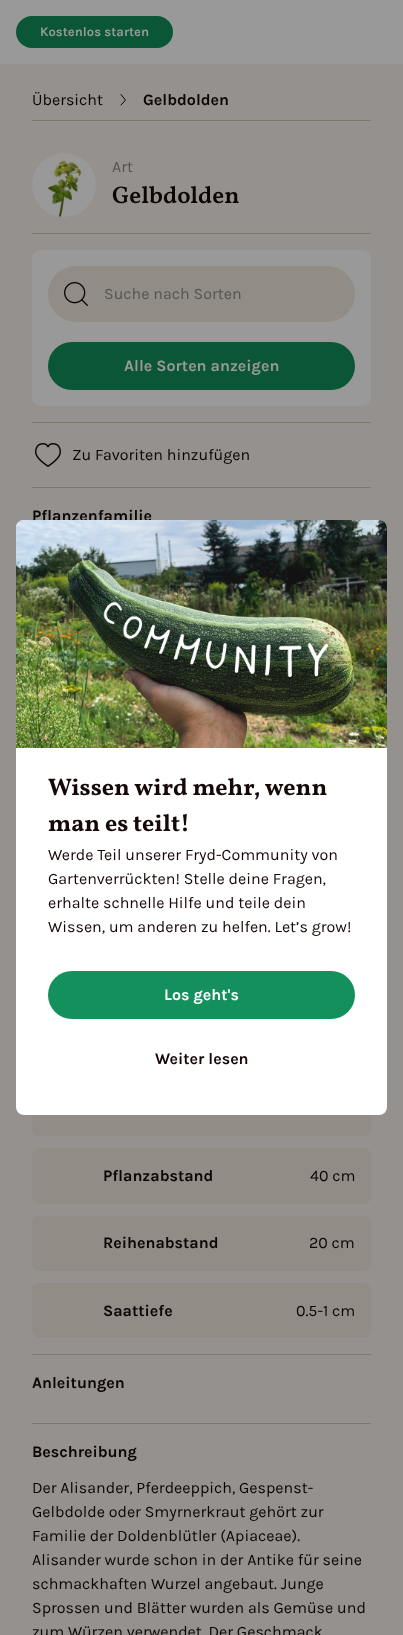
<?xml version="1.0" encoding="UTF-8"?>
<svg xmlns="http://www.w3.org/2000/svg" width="403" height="1635">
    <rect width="100%" height="100%" fill="#94918E"/>
    <rect x="0" y="0" width="403" height="64" fill="#999999"/>
    <rect x="16" y="16" width="157" height="32" rx="16" fill="#0B5637"/>
    <text x="40" y="36" font-family="Karla" font-size="13" font-weight="700" fill="#999999">Kostenlos starten</text>
    <text x="32" y="105" font-family="Karla" font-size="16" fill="#0D0504">Übersicht</text>
    <path d="M 121 94.5 L 125.5 100 L 121 105" fill="none" stroke="#0D0504" stroke-linecap="round" stroke-linejoin="round"/>
    <text x="143" y="105" font-family="Karla" font-size="16" font-weight="700" fill="#0D0504">Gelbdolden</text>
    <rect x="32" y="120" width="339" height="1" fill="#80776D"/>
    <image x="32" y="153" width="64" height="64" href="img_01.png"/>
    <text x="112" y="172" font-family="Karla" font-size="16" fill="#545454">Art</text>
    <text x="112" y="203" font-family="Vollkorn" font-size="24" font-weight="600" fill="#0D0504">Gelbdolden</text>
    <rect x="32" y="233" width="339" height="1" fill="#80776D"/>
    <rect x="32" y="250" width="339" height="156" rx="8" fill="#999999"/>
    <rect x="48" y="266" width="307" height="56" rx="28" fill="#918C85"/>
    <image x="64" y="282" width="24" height="24" href="img_02.png"/>
    <text x="104" y="299" font-family="Karla" font-size="16" fill="#545454">Suche nach Sorten</text>
    <rect x="48" y="342" width="307" height="48" rx="24" fill="#0B5637"/>
    <text x="124" y="371" font-family="Karla" font-size="16" font-weight="700" fill="#999999">Alle Sorten anzeigen</text>
    <rect x="32" y="422" width="339" height="1" fill="#80776D"/>
    <image x="35" y="443" width="26" height="24" href="img_03.png"/>
    <text x="72" y="460" font-family="Karla" font-size="16" fill="#0D0504">Zu Favoriten hinzufügen</text>
    <rect x="32" y="487" width="339" height="1" fill="#80776D"/>
    <text x="32" y="521" font-family="Karla" font-size="16" font-weight="700" fill="#0D0504">Pflanzenfamilie</text>
    <rect x="32" y="1081" width="339" height="55" rx="8" fill="#918C85"/>
    <rect x="32" y="1148" width="339" height="56" rx="8" fill="#918C85"/>
    <text x="103" y="1181" font-family="Karla" font-size="16" font-weight="700" fill="#0D0504">Pflanzabstand</text>
    <text x="310" y="1181" font-family="Karla" font-size="16" fill="#0D0504">40 cm</text>
    <rect x="32" y="1216" width="339" height="55" rx="8" fill="#918C85"/>
    <text x="103" y="1248" font-family="Karla" font-size="16" font-weight="700" fill="#0D0504">Reihenabstand</text>
    <text x="309" y="1248" font-family="Karla" font-size="16" fill="#0D0504">20 cm</text>
    <rect x="32" y="1283" width="339" height="55" rx="8" fill="#918C85"/>
    <text x="103" y="1316" font-family="Karla" font-size="16" font-weight="700" fill="#0D0504">Saattiefe</text>
    <text x="296" y="1316" font-family="Karla" font-size="16" fill="#0D0504">0.5-1 cm</text>
    <rect x="32" y="1354" width="339" height="1" fill="#80776D"/>
    <text x="32" y="1388" font-family="Karla" font-size="16" font-weight="700" fill="#0D0504">Anleitungen</text>
    <rect x="32" y="1423" width="339" height="1" fill="#80776D"/>
    <text x="32" y="1457" font-family="Karla" font-size="16" font-weight="700" fill="#0D0504">Beschreibung</text>
    <text font-family="Karla" font-size="16" fill="#0D0504">
        <tspan x="32" y="1493">Der Alisander, Pferdeeppich, Gespenst-</tspan>
        <tspan x="32" y="1517">Gelbdolde oder Smyrnerkraut gehört zur</tspan>
        <tspan x="32" y="1541">Familie der Doldenblütler (Apiaceae).</tspan>
        <tspan x="32" y="1565">Alisander wurde schon in der Antike für seine</tspan>
        <tspan x="32" y="1589">schmackhaften Wurzel angebaut. Junge</tspan>
        <tspan x="32" y="1613">Sprossen und Blätter wurden als Gemüse und</tspan>
        <tspan x="32" y="1637">zum Würzen verwendet. Der Geschmack</tspan>
    </text>
    <rect x="16" y="520" width="371" height="595" rx="8" fill="#FFFFFF"/>
    <image x="16" y="520" width="371" height="228" href="img_04.png"/>
    <text font-family="Vollkorn" font-size="24" font-weight="700" fill="#150807">
        <tspan x="48" y="795">Wissen wird mehr, wenn</tspan>
        <tspan x="48" y="831">man es teilt!</tspan>
    </text>
    <text font-family="Karla" font-size="16" fill="#150807">
        <tspan x="48" y="860">Werde Teil unserer Fryd-Community von</tspan>
        <tspan x="48" y="884">Gartenverrückten! Stelle deine Fragen,</tspan>
        <tspan x="48" y="908">erhalte schnelle Hilfe und teile dein</tspan>
        <tspan x="48" y="932">Wissen, um anderen zu helfen. Let’s grow!</tspan>
    </text>
    <rect x="48" y="971" width="307" height="48" rx="24" fill="#13905B"/>
    <text x="164" y="1000" font-family="Karla" font-size="16" font-weight="700" fill="#FFFFFF">Los geht's</text>
    <text x="155" y="1064" font-family="Karla" font-size="16" font-weight="700" fill="#150807">Weiter lesen</text>
</svg>
